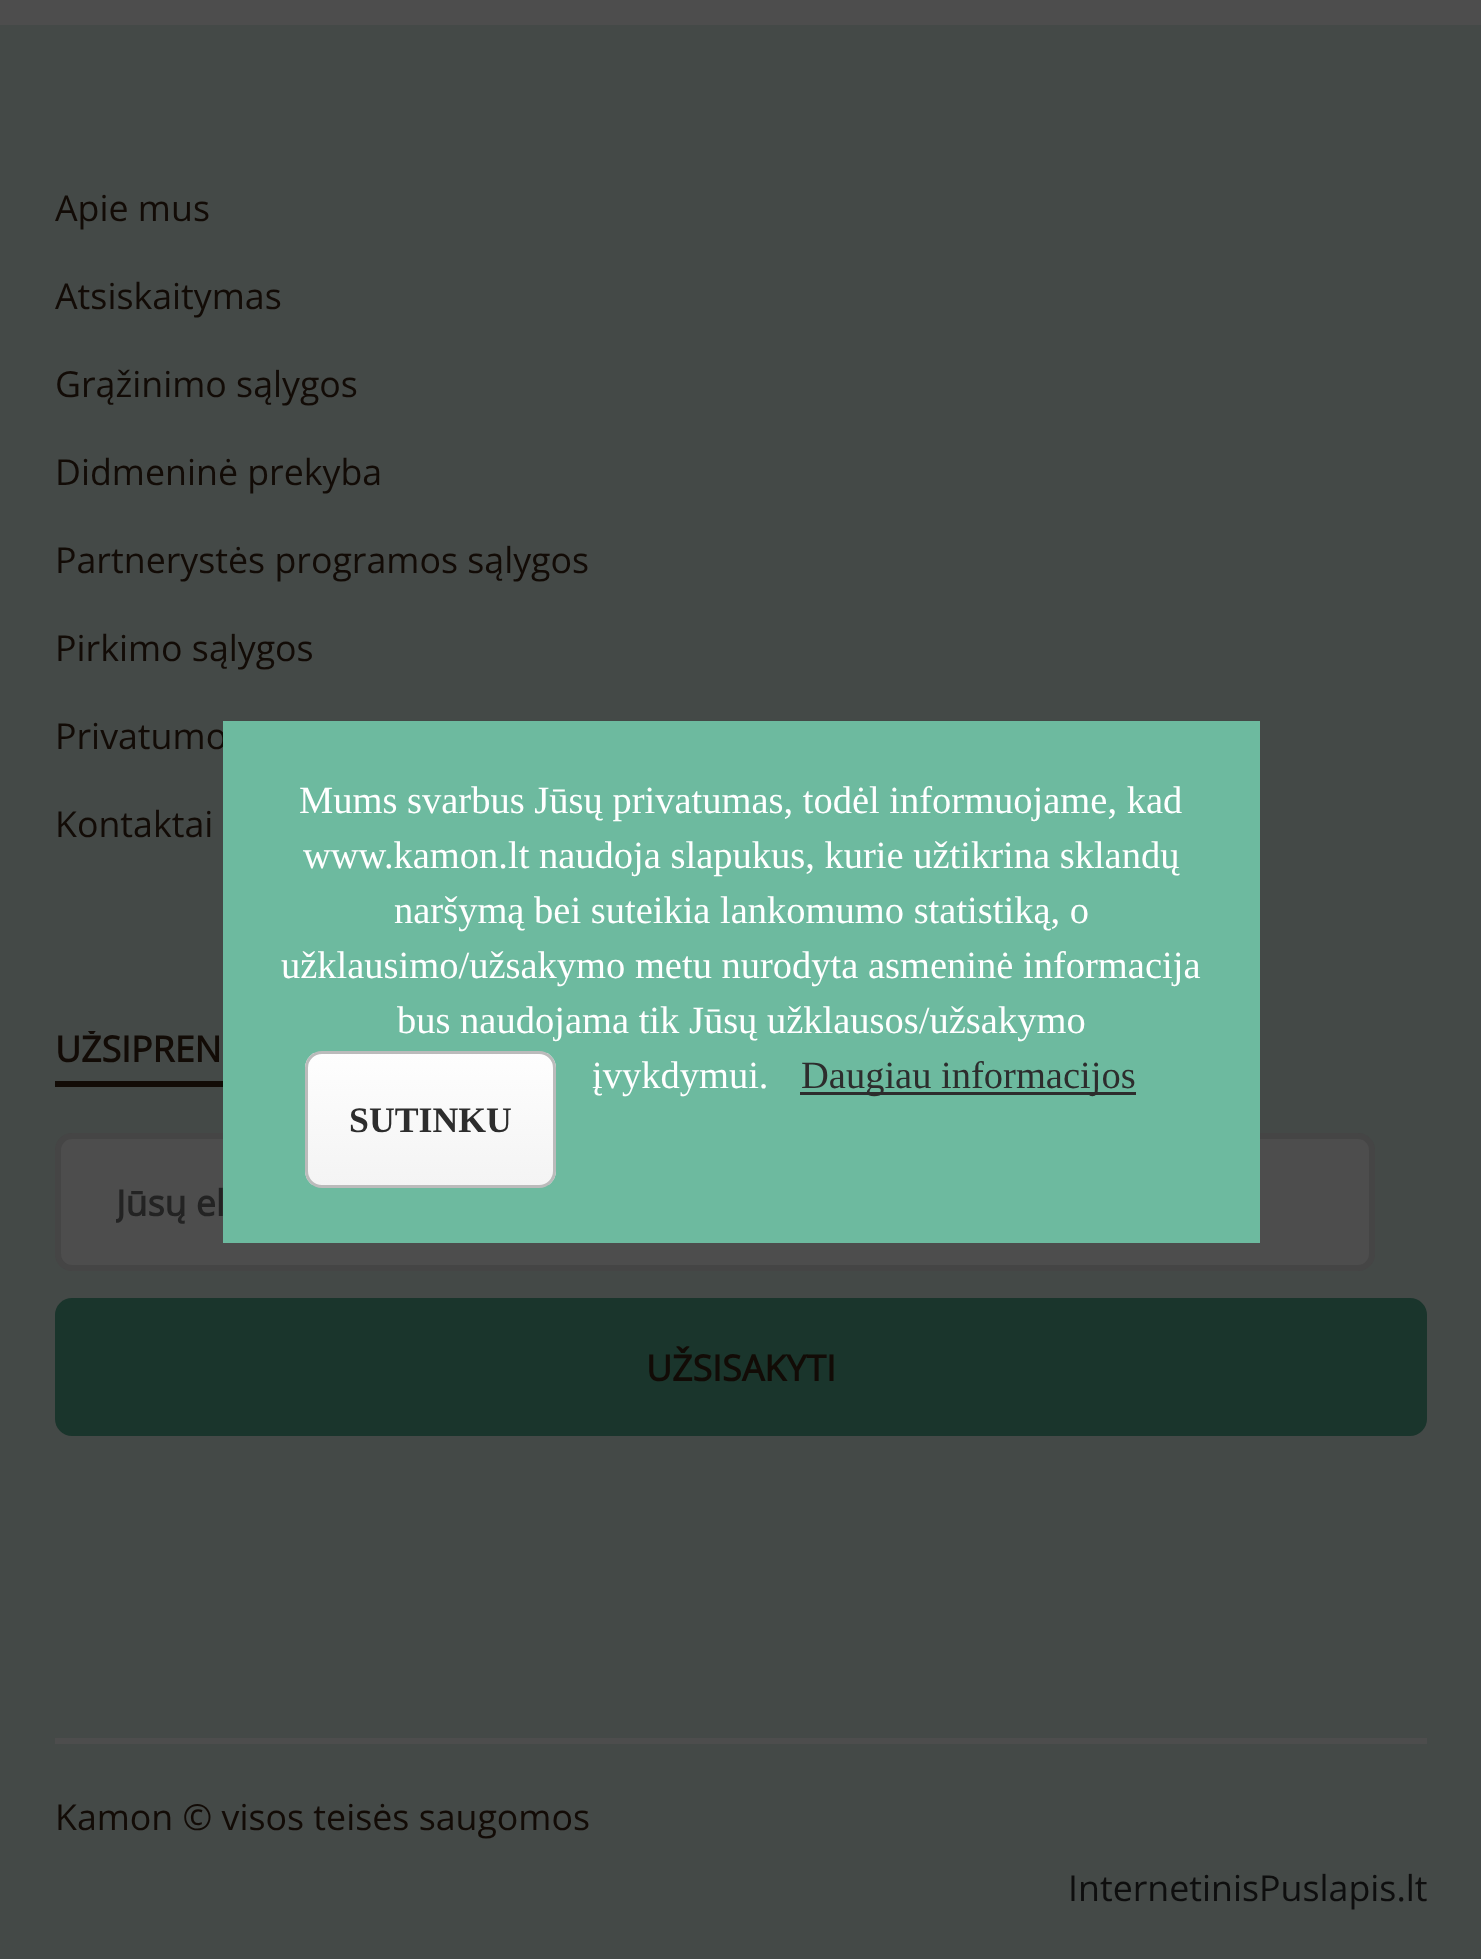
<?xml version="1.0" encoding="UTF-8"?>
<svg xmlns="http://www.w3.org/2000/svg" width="1481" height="1959">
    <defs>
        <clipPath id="clip1"><rect x="55" y="1031" width="1372" height="416"/></clipPath>
        <clipPath id="clip2"><rect x="116" y="1177" width="1199" height="50"/></clipPath>
        <clipPath id="clip3"><rect x="305" y="1051" width="251" height="137" rx="17"/></clipPath>
        <linearGradient id="g1" gradientUnits="userSpaceOnUse" x1="431" y1="1053" x2="431" y2="1185"><stop offset="0" stop-color="#FEFEFE"/><stop offset="1" stop-color="#F4F4F4"/></linearGradient>
    </defs>
    <rect width="100%" height="100%" fill="#4D4D4D"/>
    <rect x="0" y="25" width="1481" height="1934" fill="#444947"/>
    <text x="55" y="221" font-family="Open Sans" font-size="35.75" fill="#120B06">Apie mus</text>
    <text x="55" y="309" font-family="Open Sans" font-size="35.75" fill="#120B06">Atsiskaitymas</text>
    <text x="55" y="397" font-family="Open Sans" font-size="35.75" fill="#120B06">Grąžinimo sąlygos</text>
    <text x="55" y="485" font-family="Open Sans" font-size="35.75" fill="#120B06">Didmeninė prekyba</text>
    <text x="55" y="573" font-family="Open Sans" font-size="35.75" fill="#120B06">Partnerystės programos sąlygos</text>
    <text x="55" y="661" font-family="Open Sans" font-size="35.75" fill="#120B06">Pirkimo sąlygos</text>
    <text x="55" y="749" font-family="Open Sans" font-size="35.75" fill="#120B06">Privatumo</text>
    <text x="55" y="837" font-family="Open Sans" font-size="35.75" fill="#120B06">Kontaktai</text>
    <g clip-path="url(#clip1)">
        <text x="55" y="1062" font-family="Open Sans" font-size="35.75" font-weight="700" fill="#120B06">UŽSIPREN</text>
    </g>
    <rect x="55" y="1081" width="168" height="6" fill="#120B06"/>
    <rect x="58" y="1136" width="1314" height="132" rx="14" fill="#4D4D4D" stroke="#454545" stroke-width="6"/>
    <g clip-path="url(#clip2)">
        <text x="116" y="1216" font-family="Open Sans" font-size="35.75" font-weight="700" fill="#232323">Jūsų el</text>
    </g>
    <rect x="55" y="1298" width="1372" height="138" rx="17" fill="#1A352C"/>
    <text x="646" y="1381" font-family="Open Sans" font-size="35.75" font-weight="700" fill="#120B06">UŽSISAKYTI</text>
    <rect x="55" y="1738" width="1372" height="6" fill="#4D4D4D"/>
    <text x="55" y="1830" font-family="Open Sans" font-size="35.75" fill="#120B06">Kamon © visos teisės saugomos</text>
    <text x="1068" y="1901" font-family="Open Sans" font-size="35.75" fill="#0E0E0E">InternetinisPuslapis.lt</text>
    <rect x="223" y="721" width="1037" height="522" fill="#6DBA9F"/>
    <text x="299" y="813" font-family="Liberation Serif" font-size="38.5" fill="#FFFFFF">Mums svarbus Jūsų privatumas, todėl informuojame, kad</text>
    <text x="303" y="868" font-family="Liberation Serif" font-size="38.5" fill="#FFFFFF">www.kamon.lt naudoja slapukus, kurie užtikrina sklandų</text>
    <text x="394" y="923" font-family="Liberation Serif" font-size="38.5" fill="#FFFFFF">naršymą bei suteikia lankomumo statistiką, o</text>
    <text x="281" y="978" font-family="Liberation Serif" font-size="38.5" fill="#FFFFFF">užklausimo/užsakymo metu nurodyta asmeninė informacija</text>
    <text x="397" y="1033" font-family="Liberation Serif" font-size="38.5" fill="#FFFFFF">bus naudojama tik Jūsų užklausos/užsakymo</text>
    <text x="592" y="1088" font-family="Liberation Serif" font-size="38.5" fill="#FFFFFF">įvykdymui.</text>
    <rect x="800" y="1092" width="336" height="3" fill="#2D2D2D"/>
    <text x="801" y="1088" font-family="Liberation Serif" font-size="38.5" fill="#2D2D2D">Daugiau informacijos</text>
    <g clip-path="url(#clip3)">
        <rect x="305" y="1053" width="251" height="132" fill="url(#g1)"/>
    </g>
    <rect x="306.5" y="1052.5" width="248" height="134" rx="15.5" fill="none" stroke="#BBBBBB" stroke-width="3"/>
    <text x="349" y="1132" font-family="Liberation Serif" font-size="35.75" font-weight="700" fill="#2D2D2D">SUTINKU</text>
</svg>
